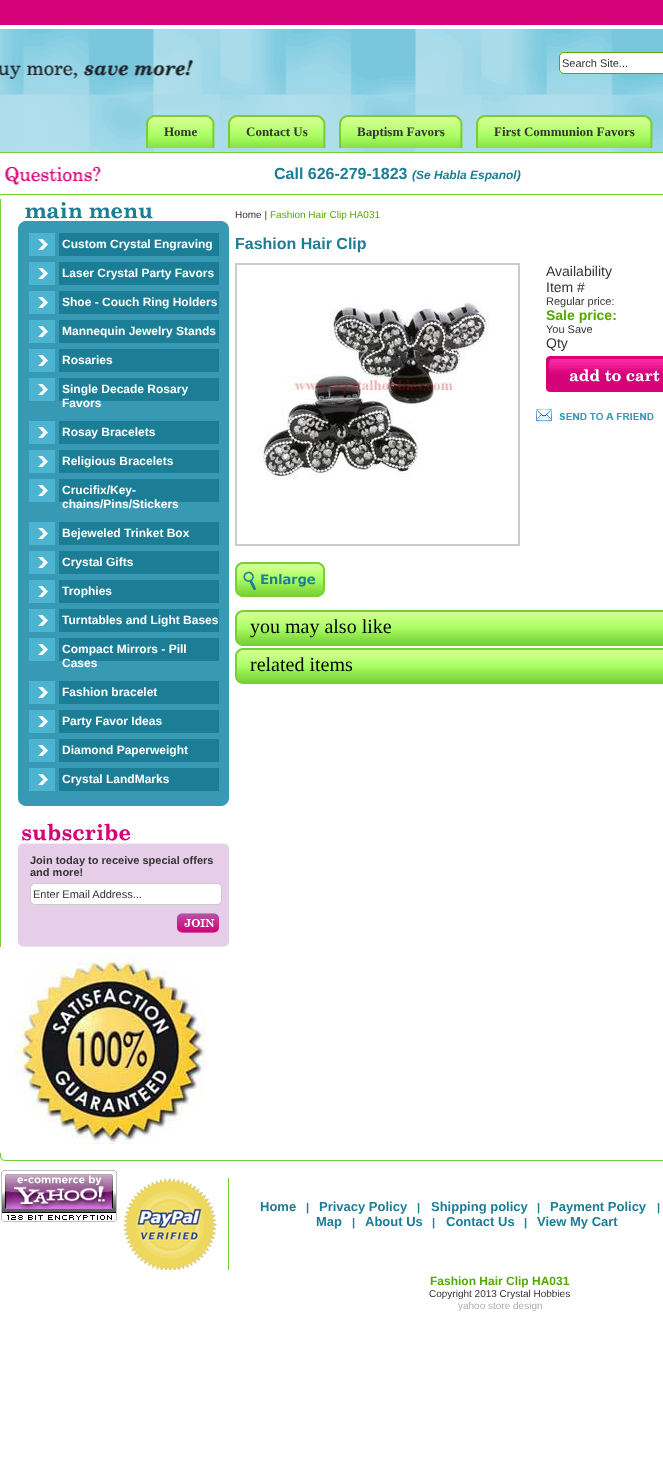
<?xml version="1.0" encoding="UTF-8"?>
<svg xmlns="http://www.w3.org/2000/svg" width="663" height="1471">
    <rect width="100%" height="100%" fill="#FFFFFF"/>
    <image x="0" y="0" width="663" height="29" href="img_01.png"/>
    <image x="0" y="29" width="663" height="170" href="img_02.png"/>
    <rect x="559.5" y="52.5" width="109" height="21" rx="4.5" fill="#FFFFFF" stroke="#54AA00"/>
    <text x="562" y="67" font-family="Liberation Sans" font-size="11" fill="#333333">Search Site...</text>
    <image x="146" y="115" width="8" height="33" href="img_03.png"/>
    <image x="154" y="115" width="62" height="33" href="img_04.png"/>
    <text x="164" y="136" font-family="Liberation Serif" font-size="13" font-weight="700" fill="#333333">Home</text>
    <image x="228" y="115" width="8" height="33" href="img_05.png"/>
    <image x="236" y="115" width="90" height="33" href="img_06.png"/>
    <text x="246" y="136" font-family="Liberation Serif" font-size="13" font-weight="700" fill="#333333">Contact Us</text>
    <image x="339" y="115" width="8" height="33" href="img_07.png"/>
    <image x="347" y="115" width="116" height="33" href="img_08.png"/>
    <text x="357" y="136" font-family="Liberation Serif" font-size="13" font-weight="700" fill="#333333">Baptism Favors</text>
    <image x="476" y="115" width="8" height="33" href="img_09.png"/>
    <image x="484" y="115" width="169" height="33" href="img_10.png"/>
    <text x="494" y="136" font-family="Liberation Serif" font-size="13" font-weight="700" fill="#333333">First Communion Favors</text>
    <text x="274" y="179" font-family="Liberation Sans" font-size="16" font-weight="700" fill="#1B7D96">Call 626-279-1823</text>
    <text x="412" y="179" font-family="Liberation Sans" font-size="12" font-weight="700" font-style="italic" fill="#1B7D96">(Se Habla Espanol)</text>
    <image x="0" y="199" width="229" height="34" href="img_11.png"/>
    <image x="0" y="233" width="229" height="564" href="img_12.png"/>
    <image x="29" y="233" width="190" height="23" href="img_13.png"/>
    <text x="62" y="248" font-family="Liberation Sans" font-size="12" font-weight="700" fill="#FFFFFF">Custom Crystal Engraving</text>
    <image x="29" y="262" width="190" height="23" href="img_13.png"/>
    <text x="62" y="277" font-family="Liberation Sans" font-size="12" font-weight="700" fill="#FFFFFF">Laser Crystal Party Favors</text>
    <image x="29" y="291" width="190" height="23" href="img_13.png"/>
    <text x="62" y="306" font-family="Liberation Sans" font-size="12" font-weight="700" fill="#FFFFFF">Shoe - Couch Ring Holders</text>
    <image x="29" y="320" width="190" height="23" href="img_13.png"/>
    <text x="62" y="335" font-family="Liberation Sans" font-size="12" font-weight="700" fill="#FFFFFF">Mannequin Jewelry Stands</text>
    <image x="29" y="349" width="190" height="23" href="img_13.png"/>
    <text x="62" y="364" font-family="Liberation Sans" font-size="12" font-weight="700" fill="#FFFFFF">Rosaries</text>
    <image x="29" y="378" width="190" height="23" href="img_13.png"/>
    <text font-family="Liberation Sans" font-size="12" font-weight="700" fill="#FFFFFF">
        <tspan x="62" y="393">Single Decade Rosary</tspan>
        <tspan x="62" y="407">Favors</tspan>
    </text>
    <image x="29" y="421" width="190" height="23" href="img_13.png"/>
    <text x="62" y="436" font-family="Liberation Sans" font-size="12" font-weight="700" fill="#FFFFFF">Rosay Bracelets</text>
    <image x="29" y="450" width="190" height="23" href="img_13.png"/>
    <text x="62" y="465" font-family="Liberation Sans" font-size="12" font-weight="700" fill="#FFFFFF">Religious Bracelets</text>
    <image x="29" y="479" width="190" height="23" href="img_13.png"/>
    <text font-family="Liberation Sans" font-size="12" font-weight="700" fill="#FFFFFF">
        <tspan x="62" y="494">Crucifix/Key-</tspan>
        <tspan x="62" y="508">chains/Pins/Stickers</tspan>
    </text>
    <image x="29" y="522" width="190" height="23" href="img_13.png"/>
    <text x="62" y="537" font-family="Liberation Sans" font-size="12" font-weight="700" fill="#FFFFFF">Bejeweled Trinket Box</text>
    <image x="29" y="551" width="190" height="23" href="img_13.png"/>
    <text x="62" y="566" font-family="Liberation Sans" font-size="12" font-weight="700" fill="#FFFFFF">Crystal Gifts</text>
    <image x="29" y="580" width="190" height="23" href="img_13.png"/>
    <text x="62" y="595" font-family="Liberation Sans" font-size="12" font-weight="700" fill="#FFFFFF">Trophies</text>
    <image x="29" y="609" width="190" height="23" href="img_13.png"/>
    <text x="62" y="624" font-family="Liberation Sans" font-size="12" font-weight="700" fill="#FFFFFF">Turntables and Light Bases</text>
    <image x="29" y="638" width="190" height="23" href="img_13.png"/>
    <text font-family="Liberation Sans" font-size="12" font-weight="700" fill="#FFFFFF">
        <tspan x="62" y="653">Compact Mirrors - Pill</tspan>
        <tspan x="62" y="667">Cases</tspan>
    </text>
    <image x="29" y="681" width="190" height="23" href="img_13.png"/>
    <text x="62" y="696" font-family="Liberation Sans" font-size="12" font-weight="700" fill="#FFFFFF">Fashion bracelet</text>
    <image x="29" y="710" width="190" height="23" href="img_13.png"/>
    <text x="62" y="725" font-family="Liberation Sans" font-size="12" font-weight="700" fill="#FFFFFF">Party Favor Ideas</text>
    <image x="29" y="739" width="190" height="23" href="img_13.png"/>
    <text x="62" y="754" font-family="Liberation Sans" font-size="12" font-weight="700" fill="#FFFFFF">Diamond Paperweight</text>
    <image x="29" y="768" width="190" height="23" href="img_13.png"/>
    <text x="62" y="783" font-family="Liberation Sans" font-size="12" font-weight="700" fill="#FFFFFF">Crystal LandMarks</text>
    <image x="0" y="797" width="229" height="150" href="img_14.png"/>
    <text font-family="Liberation Sans" font-size="11" font-weight="700" fill="#333333">
        <tspan x="30" y="864">Join today to receive special offers</tspan>
        <tspan x="30" y="876">and more!</tspan>
    </text>
    <rect x="30.5" y="883.5" width="191" height="21" rx="4.5" fill="#FFFFFF" stroke="#CCCCCC"/>
    <text x="33" y="898" font-family="Liberation Sans" font-size="11" fill="#333333">Enter Email Address...</text>
    <image x="177" y="913" width="42" height="20" href="img_15.png"/>
    <image x="15" y="954" width="190" height="190" href="img_16.png"/>
    <text x="235" y="218" font-family="Liberation Sans" font-size="10" fill="#333333">Home |</text>
    <text x="270" y="218" font-family="Liberation Sans" font-size="10" fill="#54AA00">Fashion Hair Clip HA031</text>
    <text x="235" y="249" font-family="Liberation Sans" font-size="16" font-weight="700" fill="#1B7D96">Fashion Hair Clip</text>
    <rect x="236" y="264" width="283" height="281" fill="none" stroke="#CBCBCB" stroke-width="2"/>
    <image x="258" y="302" width="232" height="176" href="img_17.png"/>
    <image x="235" y="562" width="90" height="35" href="img_18.png"/>
    <text font-family="Liberation Sans" font-size="14" fill="#333333">
        <tspan x="546" y="276">Availability</tspan>
        <tspan x="546" y="292">Item #</tspan>
    </text>
    <text x="546" y="305" font-family="Liberation Sans" font-size="11" fill="#333333">Regular price:</text>
    <text x="546" y="320" font-family="Liberation Sans" font-size="14" font-weight="700" fill="#54AA00">Sale price:</text>
    <text x="546" y="333" font-family="Liberation Sans" font-size="11" fill="#333333">You Save</text>
    <text x="546" y="348" font-family="Liberation Sans" font-size="14" fill="#333333">Qty</text>
    <image x="546" y="356" width="117" height="36" href="img_19.png"/>
    <image x="536" y="409" width="118" height="12" href="img_20.png"/>
    <image x="235" y="610" width="428" height="36" href="img_21.png"/>
    <text x="250" y="633" font-family="Liberation Serif" font-size="20" fill="#000000">you may also like</text>
    <image x="235" y="648" width="428" height="36" href="img_21.png"/>
    <text x="250" y="671" font-family="Liberation Serif" font-size="20" fill="#000000">related items</text>
    <image x="0" y="1153" width="663" height="117" href="img_22.png"/>
    <text x="260" y="1211" font-family="Liberation Sans" font-size="13" font-weight="700" fill="#1B7D96">Home</text>
    <text x="306" y="1211" font-family="Liberation Sans" font-size="11" font-weight="700" fill="#1B7D96">|</text>
    <text x="319" y="1211" font-family="Liberation Sans" font-size="13" font-weight="700" fill="#1B7D96">Privacy Policy</text>
    <text x="417" y="1211" font-family="Liberation Sans" font-size="11" font-weight="700" fill="#1B7D96">|</text>
    <text x="431" y="1211" font-family="Liberation Sans" font-size="13" font-weight="700" fill="#1B7D96">Shipping policy</text>
    <text x="537" y="1211" font-family="Liberation Sans" font-size="11" font-weight="700" fill="#1B7D96">|</text>
    <text x="550" y="1211" font-family="Liberation Sans" font-size="13" font-weight="700" fill="#1B7D96">Payment Policy</text>
    <text x="657" y="1211" font-family="Liberation Sans" font-size="11" font-weight="700" fill="#1B7D96">|</text>
    <text x="316" y="1226" font-family="Liberation Sans" font-size="13" font-weight="700" fill="#1B7D96">Map</text>
    <text x="352" y="1226" font-family="Liberation Sans" font-size="11" font-weight="700" fill="#1B7D96">|</text>
    <text x="365" y="1226" font-family="Liberation Sans" font-size="13" font-weight="700" fill="#1B7D96">About Us</text>
    <text x="432" y="1226" font-family="Liberation Sans" font-size="11" font-weight="700" fill="#1B7D96">|</text>
    <text x="446" y="1226" font-family="Liberation Sans" font-size="13" font-weight="700" fill="#1B7D96">Contact Us</text>
    <text x="524" y="1226" font-family="Liberation Sans" font-size="11" font-weight="700" fill="#1B7D96">|</text>
    <text x="537" y="1226" font-family="Liberation Sans" font-size="13" font-weight="700" fill="#1B7D96">View My Cart</text>
    <text x="430" y="1285" font-family="Liberation Sans" font-size="12" font-weight="700" fill="#54AA00">Fashion Hair Clip HA031</text>
    <text x="429" y="1297" font-family="Liberation Sans" font-size="10" fill="#333333">Copyright 2013 Crystal Hobbies</text>
    <text x="458" y="1309" font-family="Liberation Sans" font-size="10" fill="#AEAEAE">yahoo store design</text>
</svg>
